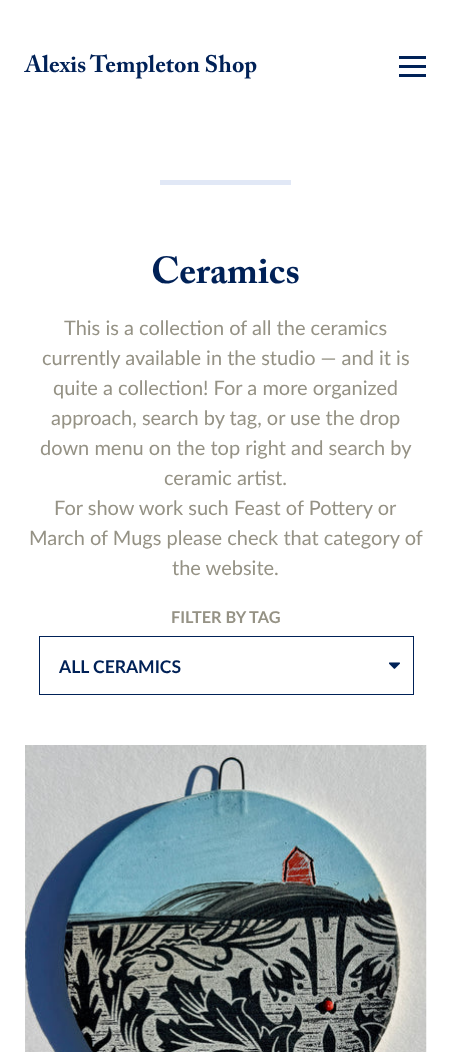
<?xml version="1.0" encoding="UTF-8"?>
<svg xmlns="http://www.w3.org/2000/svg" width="451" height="1052">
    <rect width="100%" height="100%" fill="#FFFFFF"/>
    <text x="25" y="72" font-family="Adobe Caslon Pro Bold" font-size="23.75" font-weight="700" fill="#002157">Alexis Templeton Shop</text>
    <rect x="399" y="74" width="27" height="3" fill="#002157"/>
    <rect x="399" y="56" width="27" height="3" fill="#002157"/>
    <rect x="399" y="65" width="27" height="3" fill="#002157"/>
    <rect x="160" y="180" width="131" height="5" fill="#E1E8F6"/>
    <text x="151" y="283" font-family="Adobe Caslon Pro Bold" font-size="37.5" font-weight="700" fill="#002157">Ceramics</text>
    <text x="64" y="335" font-family="Lato" font-size="20" fill="#959285">This is a collection of all the ceramics</text>
    <text x="42" y="365" font-family="Lato" font-size="20" fill="#959285">currently available in the studio — and it is</text>
    <text x="53" y="395" font-family="Lato" font-size="20" fill="#959285">quite a collection! For a more organized</text>
    <text x="51" y="425" font-family="Lato" font-size="20" fill="#959285">approach, search by tag, or use the drop</text>
    <text x="40" y="455" font-family="Lato" font-size="20" fill="#959285">down menu on the top right and search by</text>
    <text x="164" y="485" font-family="Lato" font-size="20" fill="#959285">ceramic artist.</text>
    <text x="54" y="515" font-family="Lato" font-size="20" fill="#959285">For show work such Feast of Pottery or</text>
    <text x="29" y="545" font-family="Lato" font-size="20" fill="#959285">March of Mugs please check that category of</text>
    <text x="172" y="575" font-family="Lato" font-size="20" fill="#959285">the website.</text>
    <text x="171" y="623" font-family="Lato" font-size="16.25" font-weight="700" fill="#959285">FILTER BY TAG</text>
    <image x="389" y="662" width="11" height="7" href="img_01.png"/>
    <rect x="39.5" y="636.5" width="374" height="58" fill="none" stroke="#002157"/>
    <text x="59" y="673" font-family="Lato" font-size="17.5" font-weight="700" fill="#002157">ALL CERAMICS</text>
    <image x="25" y="745" width="402" height="307" href="img_02.png"/>
</svg>
